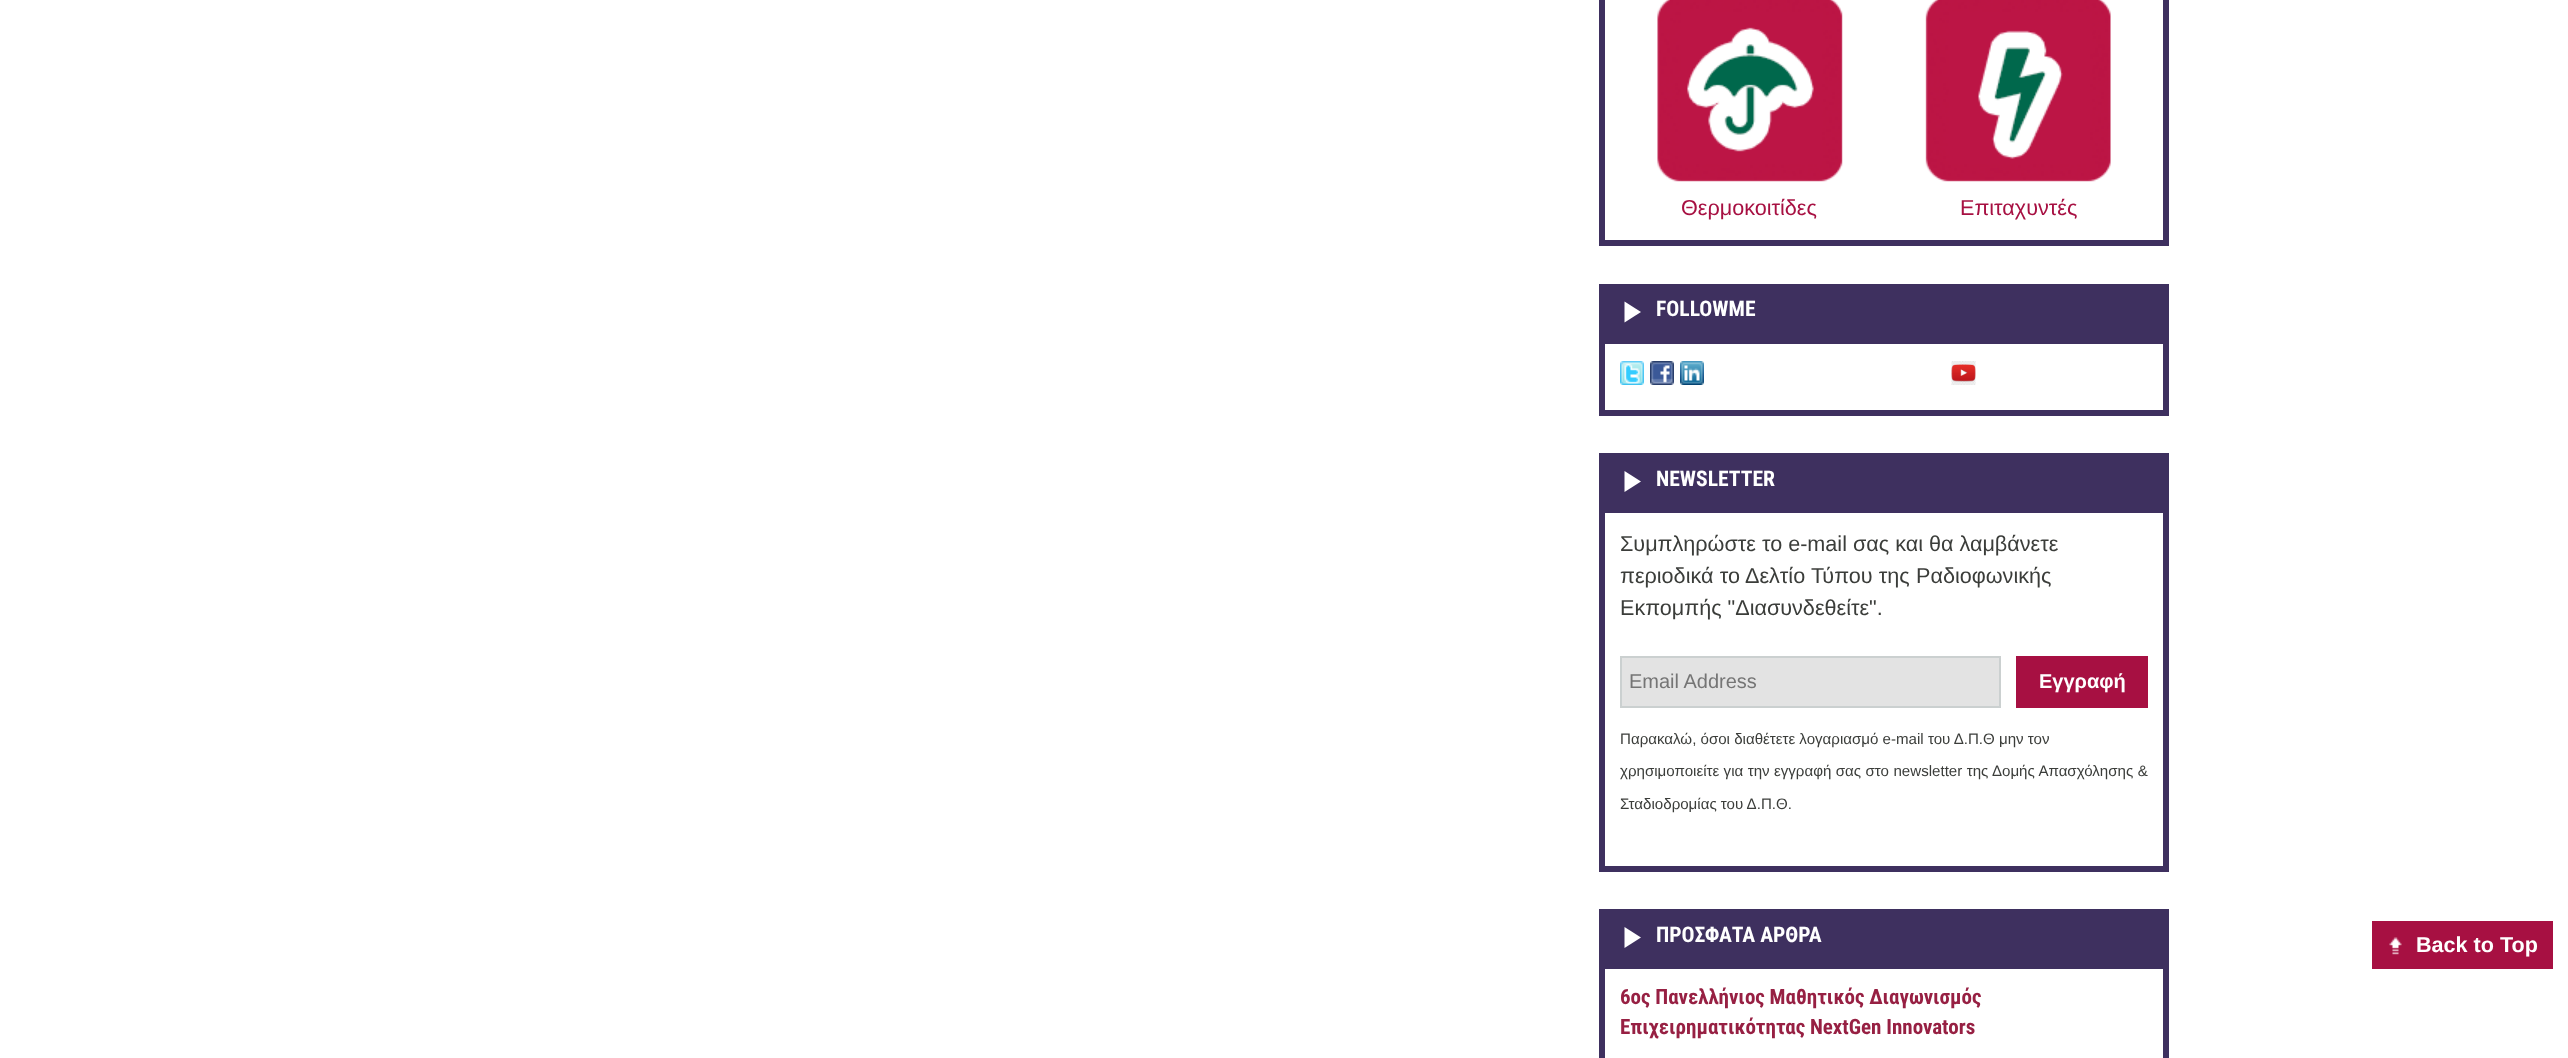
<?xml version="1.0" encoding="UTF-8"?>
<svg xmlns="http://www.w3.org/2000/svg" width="2568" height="1058">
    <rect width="100%" height="100%" fill="#FFFFFF"/>
    <rect x="1602" y="-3" width="564" height="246" fill="none" stroke="#3E305F" stroke-width="6"/>
    <image x="1657" y="0" width="186" height="182" href="img_01.png"/>
    <text x="1681" y="215" font-family="Arimo" font-size="21.6" fill="#A71042">Θερμοκοιτίδες</text>
    <image x="1925" y="0" width="186" height="182" href="img_02.png"/>
    <text x="1960" y="215" font-family="Arimo" font-size="21.6" fill="#A71042">Επιταχυντές</text>
    <rect x="1599" y="284" width="570" height="54" fill="#3E305F"/>
    <path d="M 1624.5 322.5 V 301.5 L 1641 312 Z" fill="#FFFFFF"/>
    <text x="1656" y="316" font-family="Roboto Condensed" font-size="21.6" font-weight="700" fill="#FFFFFF">FOLLOWME</text>
    <rect x="1602" y="341" width="564" height="72" fill="none" stroke="#3E305F" stroke-width="6"/>
    <image x="1620" y="361" width="24" height="24" href="img_03.png"/>
    <image x="1650" y="361" width="24" height="24" href="img_04.png"/>
    <image x="1680" y="361" width="24" height="24" href="img_05.png"/>
    <image x="1951" y="361" width="25" height="24" href="img_06.png"/>
    <rect x="1599" y="453" width="570" height="54" fill="#3E305F"/>
    <path d="M 1624.5 492 V 471 L 1641 481.5 Z" fill="#FFFFFF"/>
    <text x="1656" y="486" font-family="Roboto Condensed" font-size="21.6" font-weight="700" fill="#FFFFFF">NEWSLETTER</text>
    <rect x="1602" y="510" width="564" height="359" fill="none" stroke="#3E305F" stroke-width="6"/>
    <text font-family="Arimo" font-size="21.6" fill="#3B3D3A">
        <tspan x="1620" y="551">Συμπληρώστε το e-mail σας και θα λαμβάνετε</tspan>
        <tspan x="1620" y="583" word-spacing="0.25">περιοδικά το Δελτίο Τύπου της Ραδιοφωνικής</tspan>
        <tspan x="1620" y="615">Εκπομπής "Διασυνδεθείτε".</tspan>
    </text>
    <rect x="1621" y="657" width="379" height="50" fill="#E3E3E3" stroke="#CBD0D0" stroke-width="2"/>
    <text x="1629" y="688" font-family="Liberation Sans" font-size="20" fill="#757575">Email Address</text>
    <rect x="2016" y="656" width="132" height="52" fill="#A71042"/>
    <text x="2039" y="688" font-family="Liberation Sans" font-size="20" font-weight="700" fill="#FFFFFF">Εγγραφή</text>
    <text x="1620" y="744" font-family="Arimo" font-size="15.1" fill="#3B3D3A">Παρακαλώ, όσοι διαθέτετε λογαριασμό e-mail του Δ.Π.Θ μην τον</text>
    <text x="1620" y="776" word-spacing="0.25" font-family="Arimo" font-size="15.1" fill="#3B3D3A">χρησιμοποιείτε για την εγγραφή σας στο newsletter της Δομής Απασχόλησης &amp;</text>
    <text x="1620" y="809" font-family="Arimo" font-size="15.1" fill="#3B3D3A">Σταδιοδρομίας του Δ.Π.Θ.</text>
    <rect x="1599" y="909" width="570" height="54" fill="#3E305F"/>
    <path d="M 1624.5 948 V 927 L 1641 937.5 Z" fill="#FFFFFF"/>
    <text x="1656" y="942" font-family="Roboto Condensed" font-size="21.6" font-weight="700" fill="#FFFFFF">ΠΡOΣΦΑΤΑ AΡΘΡΑ</text>
    <rect x="1602" y="966" width="564" height="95" fill="none" stroke="#3E305F" stroke-width="6"/>
    <text font-family="Roboto Condensed" font-size="21" font-weight="700" fill="#972043">
        <tspan x="1620" y="1004">6oς Πανελλήνιος Μαθητικός Διαγωνισμός</tspan>
        <tspan x="1620" y="1034">Επιχειρηματικότητας NextGen Innovators</tspan>
    </text>
    <rect x="2372" y="921" width="181" height="48" fill="#A71042"/>
    <image x="2389" y="937" width="13" height="18" href="img_07.png"/>
    <text x="2416" y="952" font-family="Arimo" font-size="21.6" font-weight="700" fill="#FFFFFF">Back to Top</text>
</svg>
